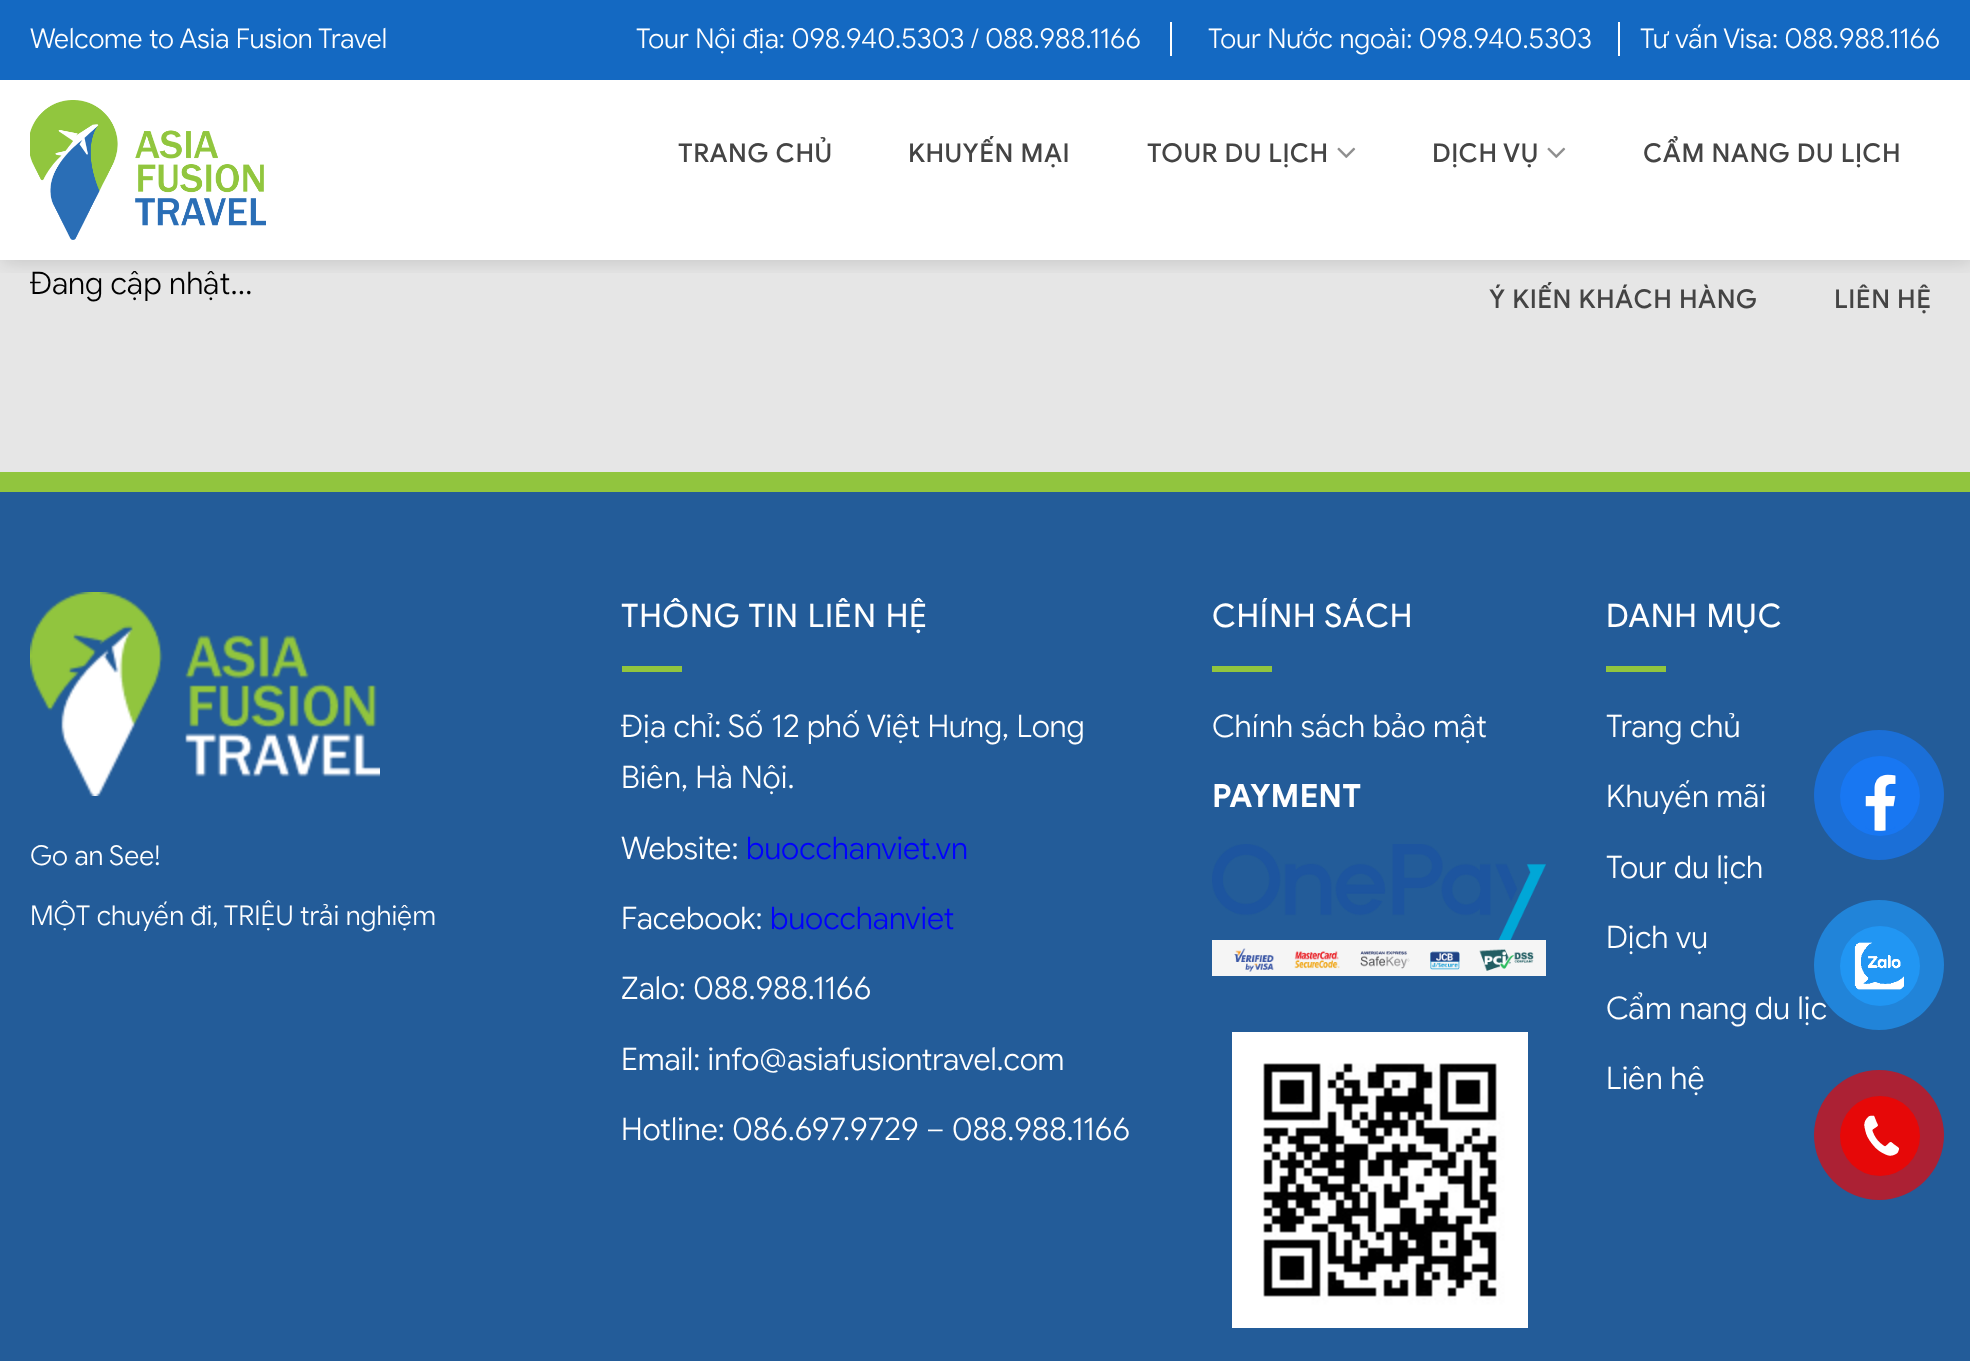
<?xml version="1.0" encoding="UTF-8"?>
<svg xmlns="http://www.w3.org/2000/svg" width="1970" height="1361">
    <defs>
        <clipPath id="clip1"><rect x="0" y="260" width="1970" height="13"/></clipPath>
        <filter id="blur1" x="-50%" y="-200%" width="200%" height="500%"><feGaussianBlur stdDeviation="10"/></filter>
    </defs>
    <rect width="100%" height="100%" fill="#FFFFFF"/>
    <rect x="0" y="260" width="1970" height="212" fill="#E6E6E6"/>
    <g clip-path="url(#clip1)">
        <rect x="2" y="2" width="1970" height="260" fill="#000000" fill-opacity="0.15" filter="url(#blur1)"/>
    </g>
    <rect x="0" y="0" width="1970" height="80" fill="#1469C2"/>
    <text x="30" y="48" font-family="Google Sans" font-size="28" font-weight="300" fill="#FFFFFF">Welcome to Asia Fusion Travel</text>
    <text x="636" y="48" font-family="Google Sans" font-size="28" font-weight="300" fill="#FFFFFF">Tour Nội địa: 098.940.5303 / 088.988.1166</text>
    <rect x="1170" y="22" width="2" height="34" fill="#FFFFFF"/>
    <text x="1208" y="48" font-family="Google Sans" font-size="28" font-weight="300" fill="#FFFFFF">Tour Nước ngoài: 098.940.5303</text>
    <text x="1640" y="48" font-family="Google Sans" font-size="28" font-weight="300" fill="#FFFFFF">Tư vấn Visa: 088.988.1166</text>
    <rect x="1618" y="22" width="2" height="34" fill="#FFFFFF"/>
    <image x="30" y="100" width="236" height="140" href="img_01.png"/>
    <text x="678" y="162" font-family="Google Sans" font-size="26" font-weight="500" letter-spacing="0.5" fill="#444444">TRANG CHỦ</text>
    <text x="908" y="162" font-family="Google Sans" font-size="26" font-weight="500" letter-spacing="0.5" fill="#444444">KHUYẾN MẠI</text>
    <text x="1147" y="162" font-family="Google Sans" font-size="26" font-weight="500" letter-spacing="0.5" fill="#444444">TOUR DU LỊCH</text>
    <image x="1337" y="147" width="19" height="11" href="img_02.png"/>
    <text x="1432" y="162" word-spacing="-1" font-family="Google Sans" font-size="26" font-weight="500" letter-spacing="0.5" fill="#444444">DỊCH VỤ</text>
    <image x="1547" y="147" width="19" height="11" href="img_02.png"/>
    <text x="1643" y="162" font-family="Google Sans" font-size="26" font-weight="500" letter-spacing="0.5" fill="#444444">CẨM NANG DU LỊCH</text>
    <text x="1489" y="308" font-family="Google Sans" font-size="26" font-weight="500" letter-spacing="0.5" fill="#444444">Ý KIẾN KHÁCH HÀNG</text>
    <text x="1834" y="308" font-family="Google Sans" font-size="26" font-weight="500" letter-spacing="0.5" fill="#444444">LIÊN HỆ</text>
    <text x="30" y="294" font-family="Google Sans" font-size="32" font-weight="300" fill="#000000">Đang cập nhật…</text>
    <rect x="0" y="492" width="1970" height="869" fill="#235C99"/>
    <rect x="0" y="472" width="1970" height="20" fill="#91C53E"/>
    <image x="30" y="592" width="350" height="204" href="img_03.png"/>
    <text x="30" y="865" font-family="Google Sans" font-size="28" font-weight="300" fill="#FFFFFF">Go an See!</text>
    <text x="30" y="925" font-family="Google Sans" font-size="28" font-weight="300" fill="#FFFFFF">MỘT chuyến đi, TRIỆU trải nghiệm</text>
    <text x="621" y="627" font-family="Google Sans" font-size="32" font-weight="700" letter-spacing="1.6" fill="#FFFFFF">THÔNG TIN LIÊN HỆ</text>
    <rect x="622" y="666" width="60" height="6" fill="#91C53E"/>
    <text font-family="Google Sans" font-size="32" font-weight="300" fill="#FFFFFF">
        <tspan x="621" y="737">Địa chỉ: Số 12 phố Việt Hưng, Long</tspan>
        <tspan x="621" y="788">Biên, Hà Nội.</tspan>
    </text>
    <text x="621" y="859" font-family="Google Sans" font-size="32" font-weight="300" fill="#FFFFFF">Website:</text>
    <text x="746" y="859" font-family="Google Sans" font-size="32" font-weight="300" fill="#0000FF">buocchanviet.vn</text>
    <text x="621" y="929" font-family="Google Sans" font-size="32" font-weight="300" fill="#FFFFFF">Facebook:</text>
    <text x="770" y="929" font-family="Google Sans" font-size="32" font-weight="300" fill="#0000FF">buocchanviet</text>
    <text x="621" y="999" font-family="Google Sans" font-size="32" font-weight="300" fill="#FFFFFF">Zalo: 088.988.1166</text>
    <text x="621" y="1070" font-family="Google Sans" font-size="32" font-weight="300" fill="#FFFFFF">Email: info@asiafusiontravel.com</text>
    <text x="621" y="1140" font-family="Google Sans" font-size="32" font-weight="300" fill="#FFFFFF">Hotline: 086.697.9729 – 088.988.1166</text>
    <text x="1212" y="627" font-family="Google Sans" font-size="32" font-weight="700" letter-spacing="1.6" fill="#FFFFFF">CHÍNH SÁCH</text>
    <rect x="1212" y="666" width="60" height="6" fill="#91C53E"/>
    <text x="1212" y="737" font-family="Google Sans" font-size="32" font-weight="300" fill="#FFFFFF">Chính sách bảo mật</text>
    <text x="1212" y="807" font-family="'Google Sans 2'" font-size="32" font-weight="700" fill="#FFFFFF">PAYMENT</text>
    <image x="1212" y="844" width="334" height="96" href="img_04.png"/>
    <image x="1212" y="940" width="334" height="36" href="img_05.png"/>
    <image x="1232" y="1032" width="296" height="296" href="img_06.png"/>
    <text x="1606" y="627" font-family="Google Sans" font-size="32" font-weight="700" letter-spacing="1.6" fill="#FFFFFF">DANH MỤC</text>
    <rect x="1606" y="666" width="60" height="6" fill="#91C53E"/>
    <text x="1606" y="737" font-family="Google Sans" font-size="32" font-weight="300" fill="#FFFFFF">Trang chủ</text>
    <text x="1606" y="807" font-family="Google Sans" font-size="32" font-weight="300" fill="#FFFFFF">Khuyến mãi</text>
    <text x="1606" y="878" font-family="Google Sans" font-size="32" font-weight="300" fill="#FFFFFF">Tour du lịch</text>
    <text x="1606" y="948" font-family="Google Sans" font-size="32" font-weight="300" fill="#FFFFFF">Dịch vụ</text>
    <text x="1606" y="1019" font-family="Google Sans" font-size="32" font-weight="300" fill="#FFFFFF">Cẩm nang du lịc</text>
    <text x="1606" y="1089" font-family="Google Sans" font-size="32" font-weight="300" fill="#FFFFFF">Liên hệ</text>
    <circle cx="1879" cy="795" r="65" fill="#1B6FD7"/>
    <circle cx="1880" cy="796" r="40" fill="#1877F2"/>
    <image x="1865" y="774" width="31" height="57" href="img_07.png"/>
    <circle cx="1879" cy="965" r="65" fill="#2196F3" fill-opacity="0.7"/>
    <circle cx="1880" cy="966" r="40" fill="#2196F3"/>
    <image x="1854" y="942" width="50" height="48" href="img_08.png"/>
    <circle cx="1879" cy="1135" r="65" fill="#AC2134"/>
    <circle cx="1880" cy="1136" r="40" fill="#E60808"/>
    <image x="1864" y="1115" width="35" height="41" href="img_09.png"/>
</svg>
